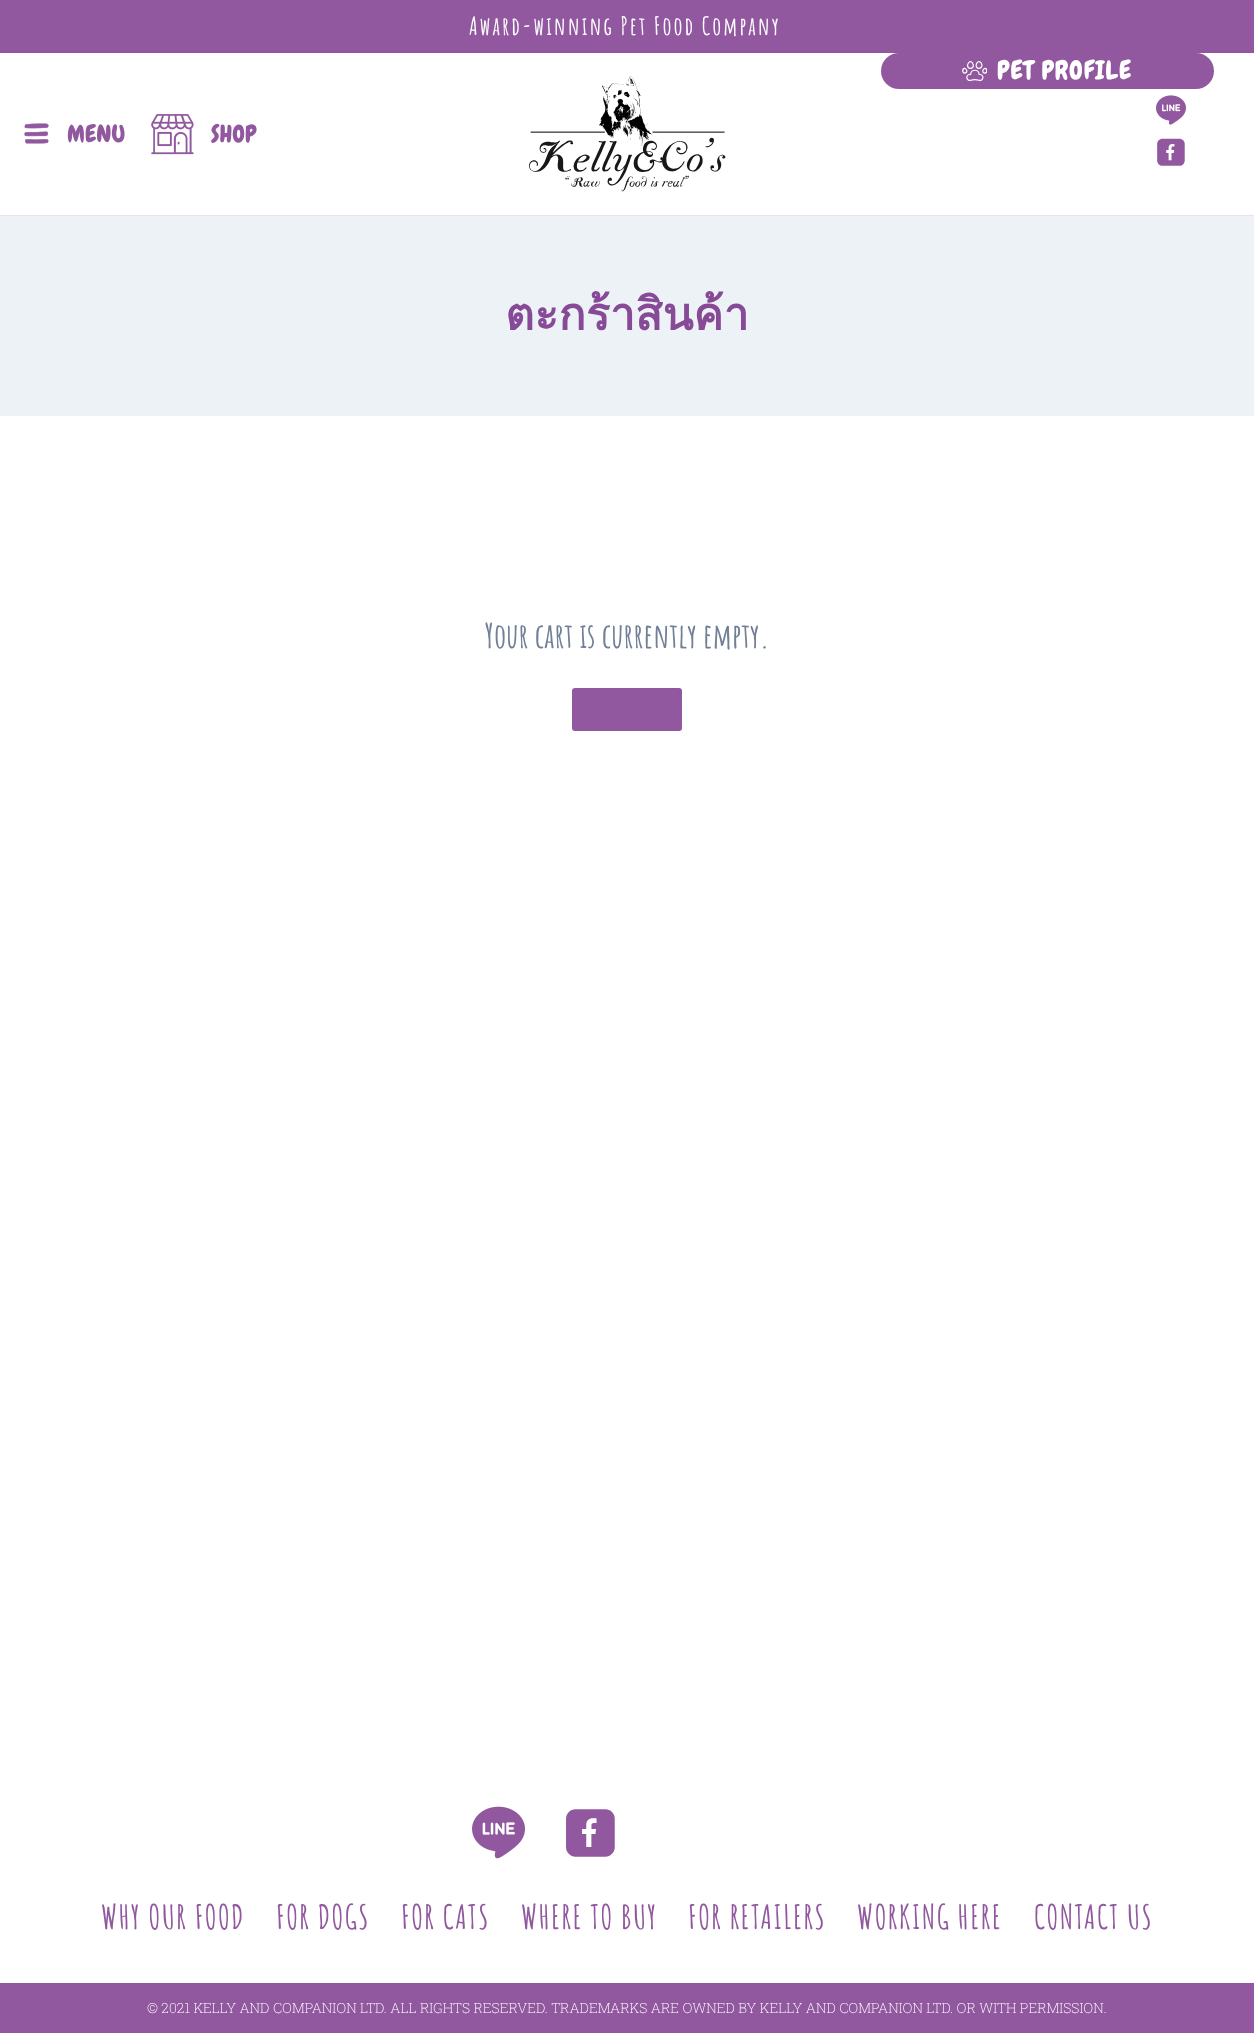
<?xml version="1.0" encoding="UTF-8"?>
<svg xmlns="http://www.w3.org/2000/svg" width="1254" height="2033">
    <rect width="100%" height="100%" fill="#FFFFFF"/>
    <rect x="0" y="0" width="1254" height="53" fill="#91589F"/>
    <text x="469" y="35" font-family="Amatic SC" font-size="25" font-weight="700" letter-spacing="2" fill="#FFFFFF">Award-winning Pet Food Company</text>
    <rect x="0" y="215" width="1254" height="1" fill="#EBE1ED"/>
    <rect x="881" y="53" width="333" height="36" rx="18" fill="#91589F"/>
    <image x="962" y="61" width="25" height="20" href="img_01.png"/>
    <text x="997" y="79" font-family="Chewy" font-size="26" letter-spacing="1" fill="#FFFFFF">PET PROFILE</text>
    <image x="1156" y="95" width="30" height="30" href="img_02.png"/>
    <image x="1157" y="138" width="28" height="28" href="img_03.png"/>
    <image x="24" y="123" width="25" height="21" href="img_04.png"/>
    <text x="67" y="142" font-family="Chewy" font-size="24" fill="#91589F">MENU</text>
    <image x="151" y="114" width="43" height="41" href="img_05.png"/>
    <text x="211" y="142" font-family="Chewy" font-size="24" fill="#91589F">SHOP</text>
    <image x="529" y="76" width="197" height="116" href="img_06.png"/>
    <rect x="0" y="216" width="1254" height="200" fill="#EDF2F7"/>
    <text x="505" y="330" font-family="Loma" font-size="45" font-weight="700" fill="#874A96">ตะกร้าสินค้า</text>
    <text x="485" y="648" font-family="Amatic SC" font-size="34" font-weight="700" fill="#718096">Your cart is currently empty.</text>
    <rect x="572" y="688" width="110" height="43" rx="3" fill="#91589F"/>
    <image x="472" y="1806" width="53" height="53" href="img_07.png"/>
    <image x="566" y="1809" width="49" height="48" href="img_08.png"/>
    <text x="101" y="1929" font-family="Amatic SC" font-size="33" font-weight="700" letter-spacing="1.4" fill="#91589F">WHY OUR FOOD</text>
    <text x="276" y="1929" font-family="Amatic SC" font-size="33" font-weight="700" letter-spacing="1.4" fill="#91589F">FOR DOGS</text>
    <text x="401" y="1929" font-family="Amatic SC" font-size="33" font-weight="700" letter-spacing="1.4" fill="#91589F">FOR CATS</text>
    <text x="521" y="1929" font-family="Amatic SC" font-size="33" font-weight="700" letter-spacing="1.4" fill="#91589F">WHERE TO BUY</text>
    <text x="688" y="1929" font-family="Amatic SC" font-size="33" font-weight="700" letter-spacing="1.4" fill="#91589F">FOR RETAILERS</text>
    <text x="857" y="1929" font-family="Amatic SC" font-size="33" font-weight="700" letter-spacing="1.4" fill="#91589F">WORKING HERE</text>
    <text x="1034" y="1929" font-family="Amatic SC" font-size="33" font-weight="700" letter-spacing="1.4" fill="#91589F">CONTACT US</text>
    <rect x="0" y="1983" width="1254" height="50" fill="#91589F"/>
    <text x="147" y="2013" font-family="Roboto Slab" font-size="14" font-weight="200" fill="#FFFFFF">© 2021 KELLY AND COMPANION LTD. ALL RIGHTS RESERVED. TRADEMARKS ARE OWNED BY KELLY AND COMPANION LTD. OR WITH PERMISSION.</text>
</svg>
